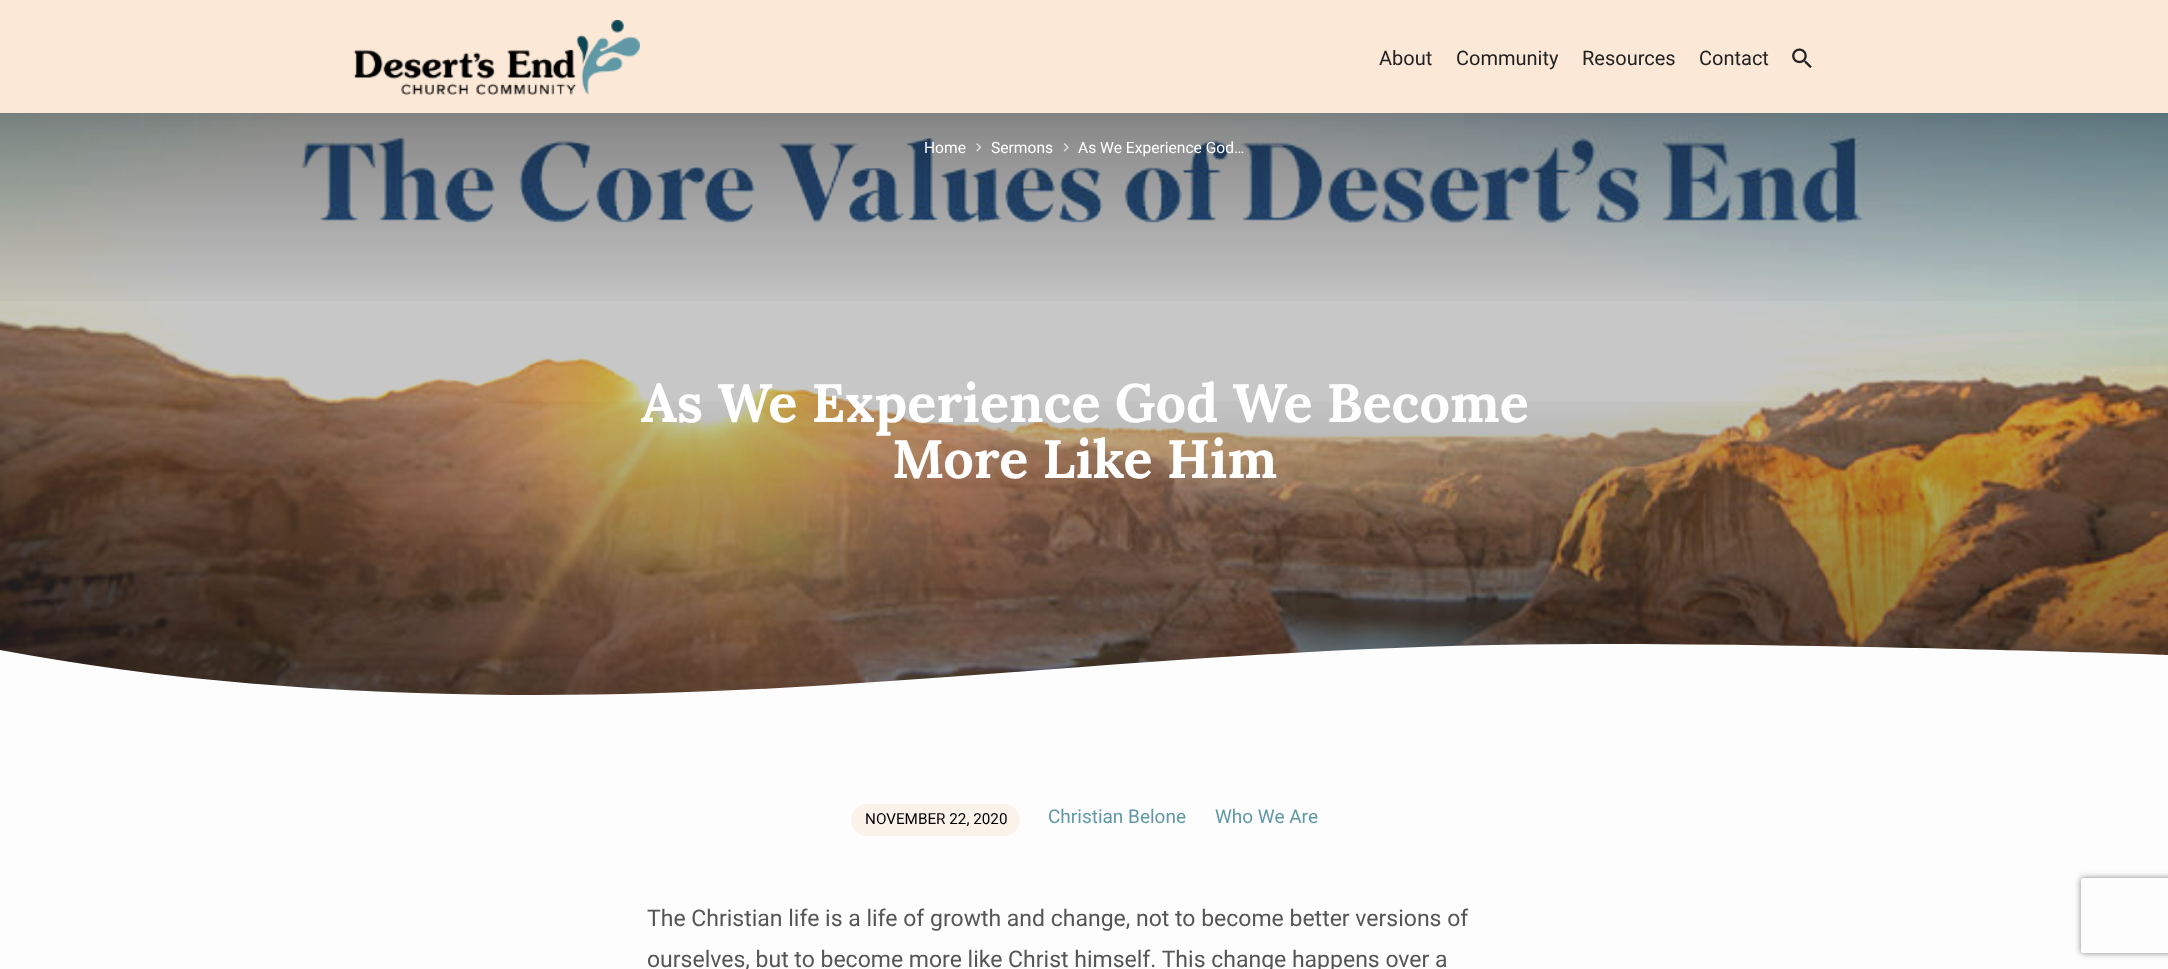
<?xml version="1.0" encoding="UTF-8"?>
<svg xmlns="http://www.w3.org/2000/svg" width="2168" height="969">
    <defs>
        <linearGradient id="g1" gradientUnits="userSpaceOnUse" x1="1084" y1="698" x2="1084" y2="0"><stop offset="0" stop-color="#000000" stop-opacity="0"/><stop offset="0.55" stop-color="#000000" stop-opacity="0"/><stop offset="0.85" stop-color="#000000" stop-opacity="0.34"/><stop offset="1" stop-color="#000000" stop-opacity="0.34"/></linearGradient>
        <filter id="blur1" x="-50%" y="-200%" width="200%" height="500%"><feGaussianBlur stdDeviation="10"/></filter>
        <linearGradient id="g2" gradientUnits="userSpaceOnUse" x1="1084" y1="0" x2="1084" y2="698"><stop offset="0" stop-color="#000000" stop-opacity="0"/><stop offset="0.55" stop-color="#000000" stop-opacity="0"/><stop offset="0.85" stop-color="#000000" stop-opacity="0.26"/><stop offset="1" stop-color="#000000" stop-opacity="0.26"/></linearGradient>
        <clipPath id="clip1"><path d="M 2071 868 H 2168 V 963 H 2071 Z M 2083.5 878 H 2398.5 C 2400 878 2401 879 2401 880.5 V 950.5 C 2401 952 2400 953 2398.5 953 H 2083.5 C 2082 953 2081 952 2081 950.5 V 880.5 C 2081 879 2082 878 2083.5 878 Z" clip-rule="evenodd"/></clipPath>
        <filter id="blur2" x="-50%" y="-200%" width="200%" height="500%"><feGaussianBlur stdDeviation="3"/></filter>
    </defs>
    <rect width="100%" height="100%" fill="#FDFDFD"/>
    <image x="0" y="113" width="2168" height="582" href="img_03.png"/>
    <rect x="0" y="113" width="2168" height="188" fill="url(#g1)"/>
    <image x="976" y="143" width="6" height="9" href="img_04.png"/>
    <image x="1063" y="143" width="6" height="9" href="img_05.png"/>
    <rect x="0" y="5" width="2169" height="113" fill="#000000" fill-opacity="0.05" filter="url(#blur1)"/>
    <rect x="0" y="0" width="2168" height="113" fill="#FBE8D7"/>
    <image x="353" y="20" width="287" height="75" href="img_01.png"/>
    <text x="1379" y="65" font-family="Roboto" font-size="20" fill="#222222">About</text>
    <text x="1456" y="65" font-family="Roboto" font-size="20" fill="#222222">Community</text>
    <text x="1582" y="65" font-family="Roboto" font-size="20" fill="#222222">Resources</text>
    <text x="1699" y="65" font-family="Roboto" font-size="20" fill="#222222">Contact</text>
    <image x="1792" y="48" width="20" height="21" href="img_02.png"/>
    <rect x="0" y="401" width="2168" height="294" fill="url(#g2)"/>
    <text x="924" y="153" font-family="Roboto" font-size="15.6" fill="#FFFFFF">Home</text>
    <text x="991" y="153" font-family="Roboto" font-size="15.6" fill="#FFFFFF">Sermons</text>
    <text x="1078" y="153" font-family="Roboto" font-size="15.6" fill="#FFFFFF">As We Experience God…</text>
    <text x="641" y="422" font-family="Lora" font-size="54" font-weight="700" fill="#FFFFFF">As We Experience God We Become</text>
    <text x="892" y="478" font-family="Lora" font-size="54" font-weight="700" fill="#FFFFFF">More Like Him</text>
    <path d="M 0 650 C 148 678 325 695 538 695 C 896 695 1189 644 1595 644 C 1866 644 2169 655 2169 655 V 698 H 0" fill="#FDFDFD"/>
    <rect x="851" y="804" width="169" height="32" rx="16" fill="#FBF2EA"/>
    <text x="865" y="824" font-family="Roboto" font-size="15.25" fill="#000000">NOVEMBER 22, 2020</text>
    <text x="1048" y="823" font-family="Roboto" font-size="19" fill="#6098A6">Christian Belone</text>
    <text x="1215" y="823" font-family="Roboto" font-size="19" fill="#6098A6">Who We Are</text>
    <text font-family="Roboto" font-size="23" fill="#555555">
        <tspan x="647" y="926">The Christian life is a life of growth and change, not to become better versions of</tspan>
        <tspan x="647" y="967">ourselves, but to become more like Christ himself. This change happens over a</tspan>
    </text>
    <g clip-path="url(#clip1)">
        <rect x="2081" y="878" width="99" height="75" rx="2.5" fill="#808080" filter="url(#blur2)"/>
    </g>
</svg>
